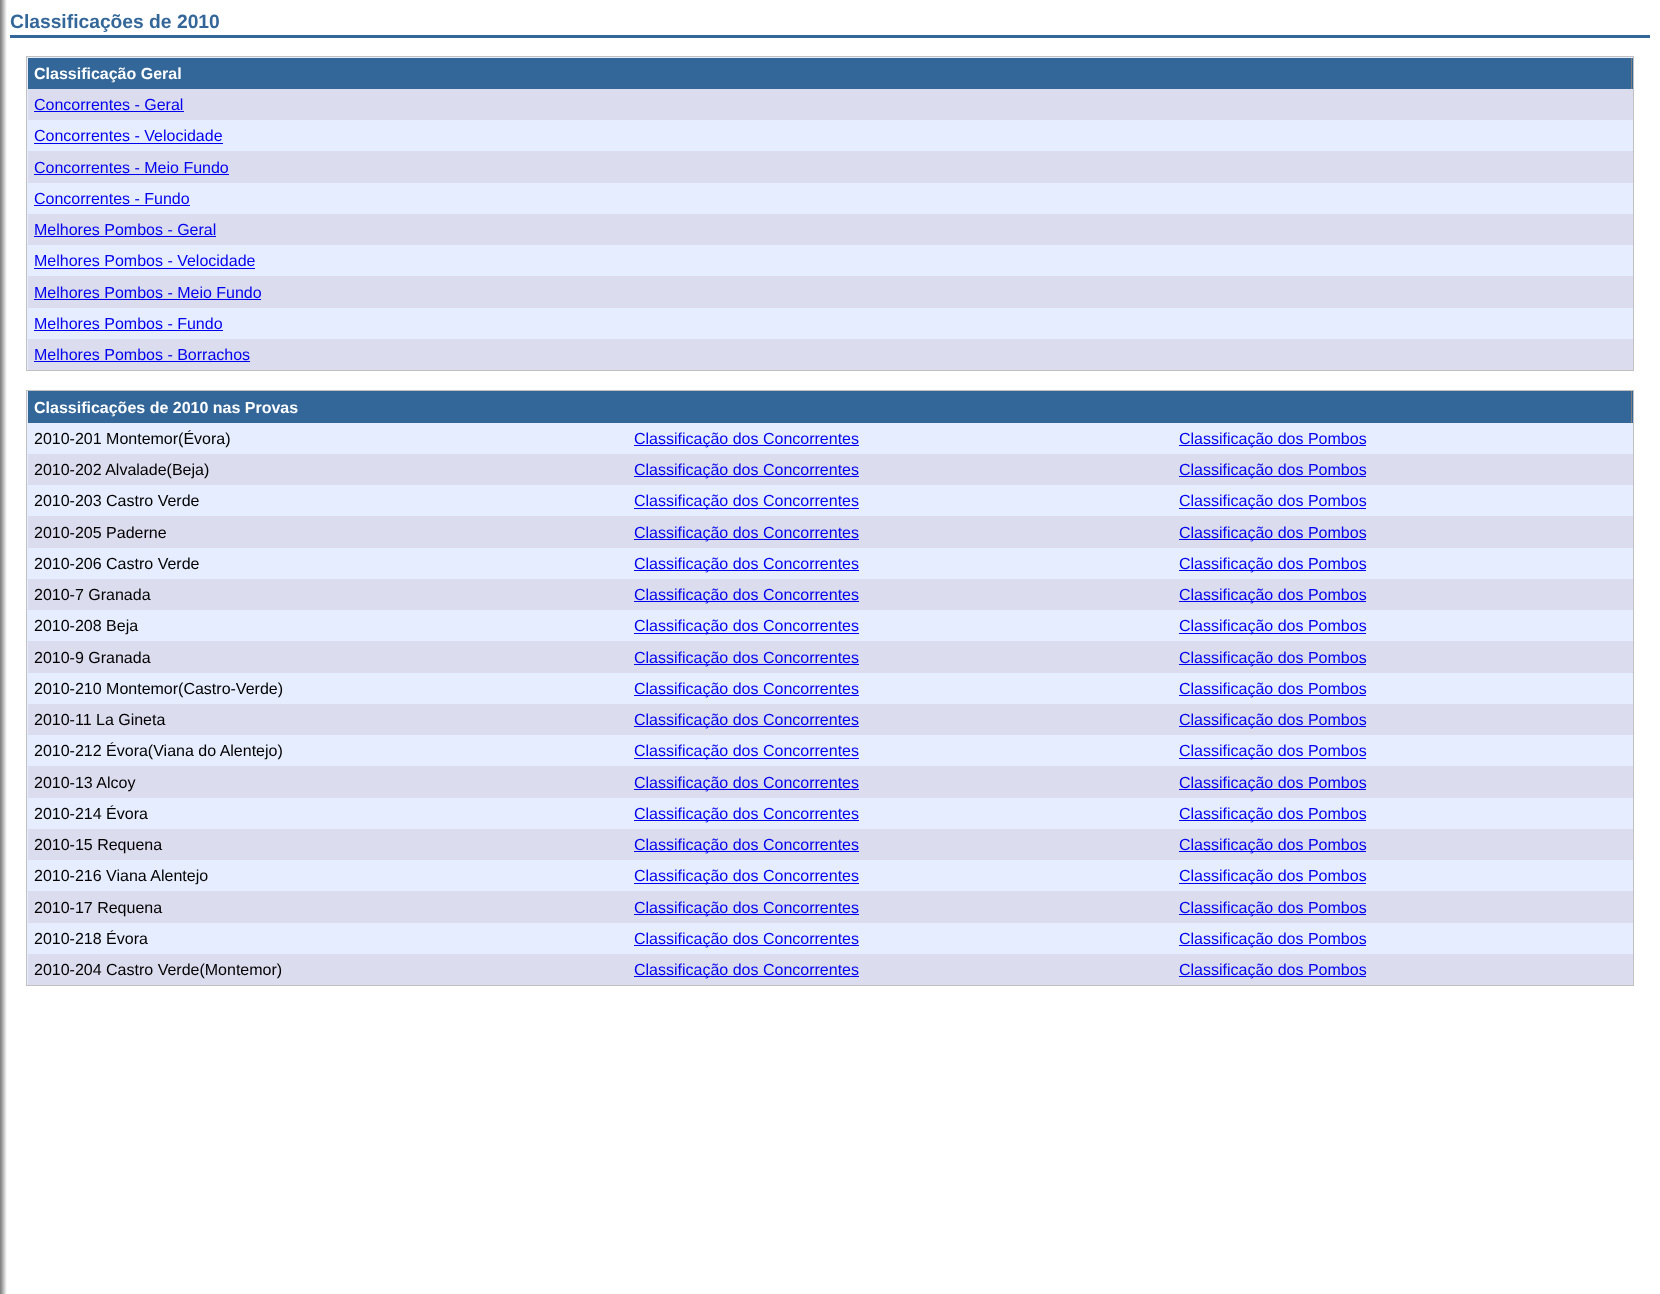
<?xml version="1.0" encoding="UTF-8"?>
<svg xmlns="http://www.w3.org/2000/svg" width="1660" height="1294">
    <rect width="100%" height="100%" fill="#FFFFFF"/>
    <image x="0" y="0" width="7" height="1294" href="img_01.png"/>
    <rect x="10" y="35" width="1640" height="3" fill="#336699"/>
    <text x="10" y="28" font-family="Liberation Sans" font-size="19.25" font-weight="700" fill="#336699">Classificações de 2010</text>
    <rect x="26.5" y="56.5" width="1607" height="314" fill="#E6EDFF" stroke="#C0C0C0"/>
    <rect x="28" y="58" width="1605" height="31" fill="#336699"/>
    <rect x="1631" y="58" width="1" height="31" fill="#808080"/>
    <text x="34" y="79" font-family="Liberation Sans" font-size="16" font-weight="700" fill="#FFFFFF">Classificação Geral</text>
    <rect x="28" y="89" width="1605" height="31" fill="#DBDCEE"/>
    <text x="34" y="110" font-family="Liberation Sans" font-size="16" fill="#0000EE">Concorrentes - Geral</text>
    <rect x="34" y="111" width="150" height="1" fill="#0000EE"/>
    <text x="34" y="141" font-family="Liberation Sans" font-size="16" fill="#0000EE">Concorrentes - Velocidade</text>
    <rect x="34" y="143" width="189" height="1" fill="#0000EE"/>
    <rect x="28" y="151" width="1605" height="32" fill="#DBDCEE"/>
    <text x="34" y="173" font-family="Liberation Sans" font-size="16" fill="#0000EE">Concorrentes - Meio Fundo</text>
    <rect x="34" y="174" width="195" height="1" fill="#0000EE"/>
    <text x="34" y="204" font-family="Liberation Sans" font-size="16" fill="#0000EE">Concorrentes - Fundo</text>
    <rect x="34" y="205" width="156" height="1" fill="#0000EE"/>
    <rect x="28" y="214" width="1605" height="31" fill="#DBDCEE"/>
    <text x="34" y="235" font-family="Liberation Sans" font-size="16" fill="#0000EE">Melhores Pombos - Geral</text>
    <rect x="34" y="236" width="182" height="1" fill="#0000EE"/>
    <text x="34" y="266" font-family="Liberation Sans" font-size="16" fill="#0000EE">Melhores Pombos - Velocidade</text>
    <rect x="34" y="268" width="221" height="1" fill="#0000EE"/>
    <rect x="28" y="276" width="1605" height="32" fill="#DBDCEE"/>
    <text x="34" y="298" font-family="Liberation Sans" font-size="16" fill="#0000EE">Melhores Pombos - Meio Fundo</text>
    <rect x="34" y="299" width="227" height="1" fill="#0000EE"/>
    <text x="34" y="329" font-family="Liberation Sans" font-size="16" fill="#0000EE">Melhores Pombos - Fundo</text>
    <rect x="34" y="330" width="189" height="1" fill="#0000EE"/>
    <rect x="28" y="339" width="1605" height="31" fill="#DBDCEE"/>
    <text x="34" y="360" font-family="Liberation Sans" font-size="16" fill="#0000EE">Melhores Pombos - Borrachos</text>
    <rect x="34" y="361" width="216" height="1" fill="#0000EE"/>
    <rect x="26.5" y="390.5" width="1607" height="595" fill="#E6EDFF" stroke="#C0C0C0"/>
    <rect x="28" y="391" width="1605" height="32" fill="#336699"/>
    <rect x="1631" y="391" width="1" height="32" fill="#808080"/>
    <text x="34" y="413" font-family="Liberation Sans" font-size="16" font-weight="700" fill="#FFFFFF">Classificações de 2010 nas Provas</text>
    <text x="34" y="444" font-family="Liberation Sans" font-size="16" fill="#000000">2010-201 Montemor(Évora)</text>
    <rect x="634" y="445" width="225" height="1" fill="#0000EE"/>
    <text x="634" y="444" font-family="Liberation Sans" font-size="16" fill="#0000EE">Classificação dos Concorrentes</text>
    <rect x="1179" y="445" width="187" height="1" fill="#0000EE"/>
    <text x="1179" y="444" font-family="Liberation Sans" font-size="16" fill="#0000EE">Classificação dos Pombos</text>
    <rect x="28" y="454" width="1605" height="31" fill="#DBDCEE"/>
    <text x="34" y="475" font-family="Liberation Sans" font-size="16" fill="#000000">2010-202 Alvalade(Beja)</text>
    <rect x="634" y="476" width="225" height="1" fill="#0000EE"/>
    <text x="634" y="475" font-family="Liberation Sans" font-size="16" fill="#0000EE">Classificação dos Concorrentes</text>
    <rect x="1179" y="476" width="187" height="1" fill="#0000EE"/>
    <text x="1179" y="475" font-family="Liberation Sans" font-size="16" fill="#0000EE">Classificação dos Pombos</text>
    <text x="34" y="506" font-family="Liberation Sans" font-size="16" fill="#000000">2010-203 Castro Verde</text>
    <rect x="634" y="508" width="225" height="1" fill="#0000EE"/>
    <text x="634" y="506" font-family="Liberation Sans" font-size="16" fill="#0000EE">Classificação dos Concorrentes</text>
    <rect x="1179" y="508" width="187" height="1" fill="#0000EE"/>
    <text x="1179" y="506" font-family="Liberation Sans" font-size="16" fill="#0000EE">Classificação dos Pombos</text>
    <rect x="28" y="516" width="1605" height="32" fill="#DBDCEE"/>
    <text x="34" y="538" font-family="Liberation Sans" font-size="16" fill="#000000">2010-205 Paderne</text>
    <rect x="634" y="539" width="225" height="1" fill="#0000EE"/>
    <text x="634" y="538" font-family="Liberation Sans" font-size="16" fill="#0000EE">Classificação dos Concorrentes</text>
    <rect x="1179" y="539" width="187" height="1" fill="#0000EE"/>
    <text x="1179" y="538" font-family="Liberation Sans" font-size="16" fill="#0000EE">Classificação dos Pombos</text>
    <text x="34" y="569" font-family="Liberation Sans" font-size="16" fill="#000000">2010-206 Castro Verde</text>
    <rect x="634" y="570" width="225" height="1" fill="#0000EE"/>
    <text x="634" y="569" font-family="Liberation Sans" font-size="16" fill="#0000EE">Classificação dos Concorrentes</text>
    <rect x="1179" y="570" width="187" height="1" fill="#0000EE"/>
    <text x="1179" y="569" font-family="Liberation Sans" font-size="16" fill="#0000EE">Classificação dos Pombos</text>
    <rect x="28" y="579" width="1605" height="31" fill="#DBDCEE"/>
    <text x="34" y="600" font-family="Liberation Sans" font-size="16" fill="#000000">2010-7 Granada</text>
    <rect x="634" y="601" width="225" height="1" fill="#0000EE"/>
    <text x="634" y="600" font-family="Liberation Sans" font-size="16" fill="#0000EE">Classificação dos Concorrentes</text>
    <rect x="1179" y="601" width="187" height="1" fill="#0000EE"/>
    <text x="1179" y="600" font-family="Liberation Sans" font-size="16" fill="#0000EE">Classificação dos Pombos</text>
    <text x="34" y="631" font-family="Liberation Sans" font-size="16" fill="#000000">2010-208 Beja</text>
    <rect x="634" y="633" width="225" height="1" fill="#0000EE"/>
    <text x="634" y="631" font-family="Liberation Sans" font-size="16" fill="#0000EE">Classificação dos Concorrentes</text>
    <rect x="1179" y="633" width="187" height="1" fill="#0000EE"/>
    <text x="1179" y="631" font-family="Liberation Sans" font-size="16" fill="#0000EE">Classificação dos Pombos</text>
    <rect x="28" y="641" width="1605" height="32" fill="#DBDCEE"/>
    <text x="34" y="663" font-family="Liberation Sans" font-size="16" fill="#000000">2010-9 Granada</text>
    <rect x="634" y="664" width="225" height="1" fill="#0000EE"/>
    <text x="634" y="663" font-family="Liberation Sans" font-size="16" fill="#0000EE">Classificação dos Concorrentes</text>
    <rect x="1179" y="664" width="187" height="1" fill="#0000EE"/>
    <text x="1179" y="663" font-family="Liberation Sans" font-size="16" fill="#0000EE">Classificação dos Pombos</text>
    <text x="34" y="694" font-family="Liberation Sans" font-size="16" fill="#000000">2010-210 Montemor(Castro-Verde)</text>
    <rect x="634" y="695" width="225" height="1" fill="#0000EE"/>
    <text x="634" y="694" font-family="Liberation Sans" font-size="16" fill="#0000EE">Classificação dos Concorrentes</text>
    <rect x="1179" y="695" width="187" height="1" fill="#0000EE"/>
    <text x="1179" y="694" font-family="Liberation Sans" font-size="16" fill="#0000EE">Classificação dos Pombos</text>
    <rect x="28" y="704" width="1605" height="31" fill="#DBDCEE"/>
    <text x="34" y="725" font-family="Liberation Sans" font-size="16" fill="#000000">2010-11 La Gineta</text>
    <rect x="634" y="726" width="225" height="1" fill="#0000EE"/>
    <text x="634" y="725" font-family="Liberation Sans" font-size="16" fill="#0000EE">Classificação dos Concorrentes</text>
    <rect x="1179" y="726" width="187" height="1" fill="#0000EE"/>
    <text x="1179" y="725" font-family="Liberation Sans" font-size="16" fill="#0000EE">Classificação dos Pombos</text>
    <text x="34" y="756" font-family="Liberation Sans" font-size="16" fill="#000000">2010-212 Évora(Viana do Alentejo)</text>
    <rect x="634" y="758" width="225" height="1" fill="#0000EE"/>
    <text x="634" y="756" font-family="Liberation Sans" font-size="16" fill="#0000EE">Classificação dos Concorrentes</text>
    <rect x="1179" y="758" width="187" height="1" fill="#0000EE"/>
    <text x="1179" y="756" font-family="Liberation Sans" font-size="16" fill="#0000EE">Classificação dos Pombos</text>
    <rect x="28" y="766" width="1605" height="32" fill="#DBDCEE"/>
    <text x="34" y="788" font-family="Liberation Sans" font-size="16" fill="#000000">2010-13 Alcoy</text>
    <rect x="634" y="789" width="225" height="1" fill="#0000EE"/>
    <text x="634" y="788" font-family="Liberation Sans" font-size="16" fill="#0000EE">Classificação dos Concorrentes</text>
    <rect x="1179" y="789" width="187" height="1" fill="#0000EE"/>
    <text x="1179" y="788" font-family="Liberation Sans" font-size="16" fill="#0000EE">Classificação dos Pombos</text>
    <text x="34" y="819" font-family="Liberation Sans" font-size="16" fill="#000000">2010-214 Évora</text>
    <rect x="634" y="820" width="225" height="1" fill="#0000EE"/>
    <text x="634" y="819" font-family="Liberation Sans" font-size="16" fill="#0000EE">Classificação dos Concorrentes</text>
    <rect x="1179" y="820" width="187" height="1" fill="#0000EE"/>
    <text x="1179" y="819" font-family="Liberation Sans" font-size="16" fill="#0000EE">Classificação dos Pombos</text>
    <rect x="28" y="829" width="1605" height="31" fill="#DBDCEE"/>
    <text x="34" y="850" font-family="Liberation Sans" font-size="16" fill="#000000">2010-15 Requena</text>
    <rect x="634" y="851" width="225" height="1" fill="#0000EE"/>
    <text x="634" y="850" font-family="Liberation Sans" font-size="16" fill="#0000EE">Classificação dos Concorrentes</text>
    <rect x="1179" y="851" width="187" height="1" fill="#0000EE"/>
    <text x="1179" y="850" font-family="Liberation Sans" font-size="16" fill="#0000EE">Classificação dos Pombos</text>
    <text x="34" y="881" font-family="Liberation Sans" font-size="16" fill="#000000">2010-216 Viana Alentejo</text>
    <rect x="634" y="883" width="225" height="1" fill="#0000EE"/>
    <text x="634" y="881" font-family="Liberation Sans" font-size="16" fill="#0000EE">Classificação dos Concorrentes</text>
    <rect x="1179" y="883" width="187" height="1" fill="#0000EE"/>
    <text x="1179" y="881" font-family="Liberation Sans" font-size="16" fill="#0000EE">Classificação dos Pombos</text>
    <rect x="28" y="891" width="1605" height="32" fill="#DBDCEE"/>
    <text x="34" y="913" font-family="Liberation Sans" font-size="16" fill="#000000">2010-17 Requena</text>
    <rect x="634" y="914" width="225" height="1" fill="#0000EE"/>
    <text x="634" y="913" font-family="Liberation Sans" font-size="16" fill="#0000EE">Classificação dos Concorrentes</text>
    <rect x="1179" y="914" width="187" height="1" fill="#0000EE"/>
    <text x="1179" y="913" font-family="Liberation Sans" font-size="16" fill="#0000EE">Classificação dos Pombos</text>
    <text x="34" y="944" font-family="Liberation Sans" font-size="16" fill="#000000">2010-218 Évora</text>
    <rect x="634" y="945" width="225" height="1" fill="#0000EE"/>
    <text x="634" y="944" font-family="Liberation Sans" font-size="16" fill="#0000EE">Classificação dos Concorrentes</text>
    <rect x="1179" y="945" width="187" height="1" fill="#0000EE"/>
    <text x="1179" y="944" font-family="Liberation Sans" font-size="16" fill="#0000EE">Classificação dos Pombos</text>
    <rect x="28" y="954" width="1605" height="31" fill="#DBDCEE"/>
    <text x="34" y="975" font-family="Liberation Sans" font-size="16" fill="#000000">2010-204 Castro Verde(Montemor)</text>
    <rect x="634" y="976" width="225" height="1" fill="#0000EE"/>
    <text x="634" y="975" font-family="Liberation Sans" font-size="16" fill="#0000EE">Classificação dos Concorrentes</text>
    <rect x="1179" y="976" width="187" height="1" fill="#0000EE"/>
    <text x="1179" y="975" font-family="Liberation Sans" font-size="16" fill="#0000EE">Classificação dos Pombos</text>
</svg>
